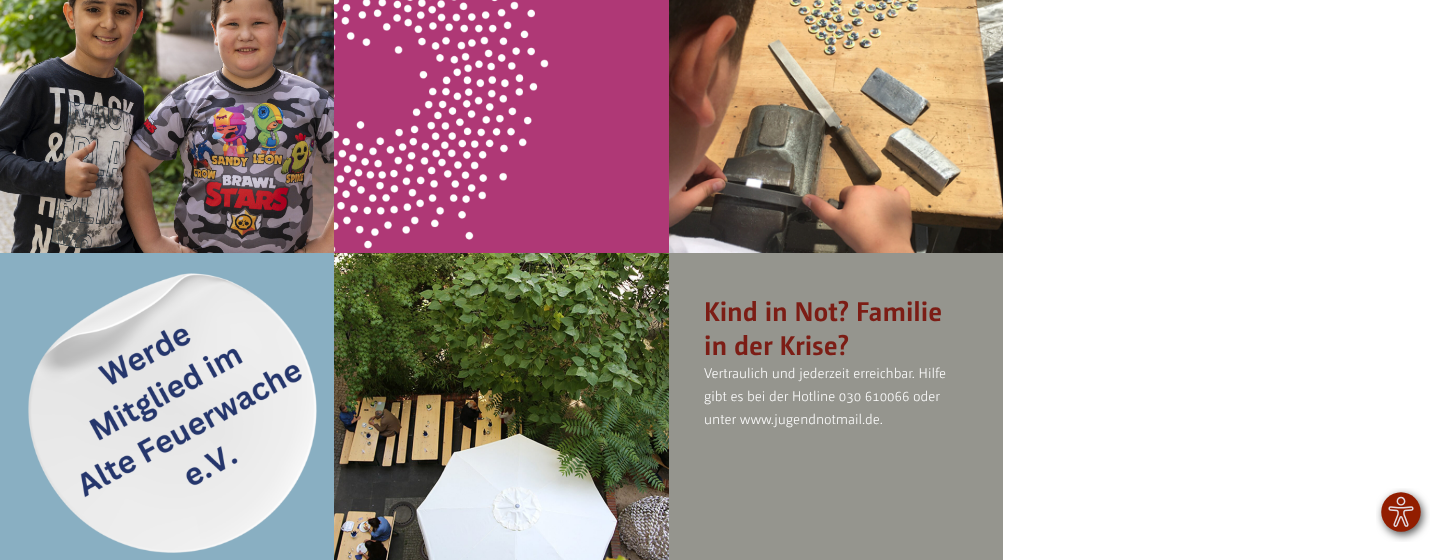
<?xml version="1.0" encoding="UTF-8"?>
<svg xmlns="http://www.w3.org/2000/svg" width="1431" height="560">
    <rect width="100%" height="100%" fill="#FFFFFF"/>
    <image x="0" y="0" width="334" height="253" href="img_01.png"/>
    <rect x="334" y="0" width="335" height="253" fill="#AF3876"/>
    <image x="334" y="0" width="215" height="253" href="img_02.png"/>
    <image x="669" y="0" width="334" height="253" href="img_03.png"/>
    <image x="0" y="253" width="334" height="307" href="img_04.png"/>
    <image x="334" y="253" width="335" height="307" href="img_05.png"/>
    <rect x="669" y="253" width="334" height="307" fill="#95958E"/>
    <text font-family="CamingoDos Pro" font-size="27" font-weight="700" fill="#7C1D15">
        <tspan x="704" y="321">Kind in Not? Familie</tspan>
        <tspan x="704" y="355">in der Krise?</tspan>
    </text>
    <text font-family="CamingoDos Pro" font-size="14" font-weight="300" fill="#FFFFFF">
        <tspan x="704" y="378">Vertraulich und jederzeit erreichbar. Hilfe</tspan>
        <tspan x="704" y="401">gibt es bei der Hotline 030 610066 oder</tspan>
        <tspan x="704" y="424">unter www.jugendnotmail.de.</tspan>
    </text>
    <image x="1376" y="488" width="54" height="54" href="img_06.png"/>
</svg>
